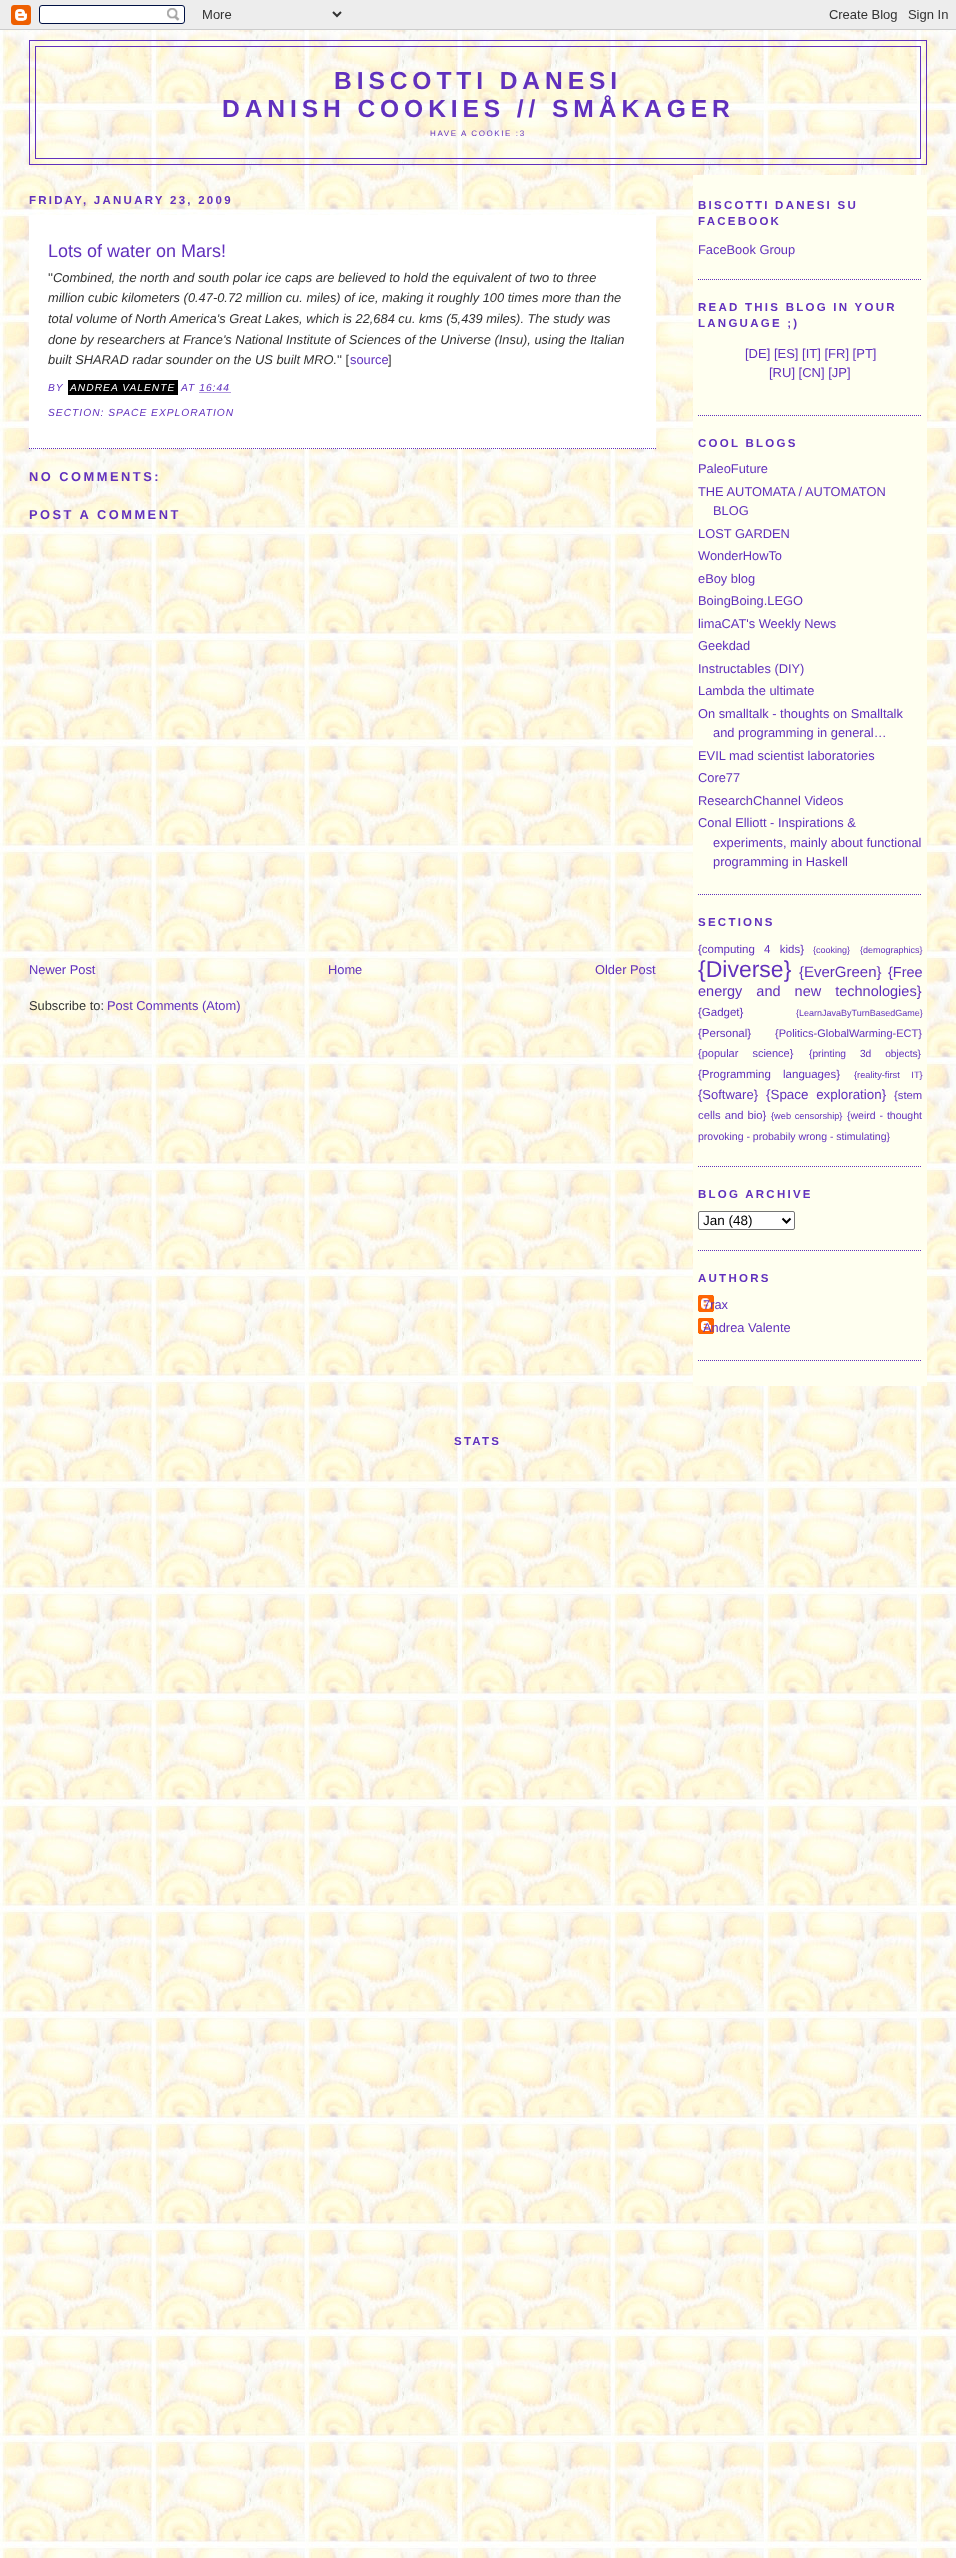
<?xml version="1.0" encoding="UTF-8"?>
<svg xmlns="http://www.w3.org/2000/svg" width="956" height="2558">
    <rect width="100%" height="100%" fill="#FFFFFF"/>
    <image x="0" y="30" width="956" height="2528" href="img_01.png"/>
    <image x="0" y="0" width="956" height="30" href="img_02.png"/>
    <rect x="29.5" y="40.5" width="897" height="124" fill="none" stroke="#6131BD"/>
    <rect x="35.5" y="46.5" width="885" height="112" fill="none" stroke="#6131BD"/>
    <text x="334" y="89" font-family="Liberation Sans" font-size="24.6" font-weight="700" letter-spacing="4.9" fill="#6131BD">BISCOTTI DANESI</text>
    <text x="222" y="117" font-family="Liberation Sans" font-size="24.6" font-weight="700" letter-spacing="4.9" fill="#6131BD">DANISH COOKIES // SMÅKAGER</text>
    <text x="430" y="136" font-family="Liberation Sans" font-size="8" letter-spacing="1.6" fill="#6131BD">HAVE A COOKIE :3</text>
    <text x="29" y="204" font-family="Liberation Sans" font-size="11.5" font-weight="700" letter-spacing="2.25" fill="#6131BD">FRIDAY, JANUARY 23, 2009</text>
    <rect x="29" y="215" width="627" height="234" fill="#FFFFFF"/>
    <path d="M 29 448.5 H 656" fill="none" stroke="#6131BD" stroke-dasharray="1 1"/>
    <text x="48" y="257" font-family="Liberation Sans" font-size="18" fill="#6131BD">Lots of water on Mars!</text>
    <text x="48" y="282" font-family="Liberation Sans" font-size="12.85" fill="#333333">''</text>
    <text x="53" y="282" font-family="Liberation Sans" font-size="12.85" font-style="italic" fill="#333333">Combined, the north and south polar ice caps are believed to hold the equivalent of two to three</text>
    <text font-family="Liberation Sans" font-size="12.85" font-style="italic" fill="#333333">
        <tspan x="48" y="302">million cubic kilometers (0.47-0.72 million cu. miles) of ice, making it roughly 100 times more than the</tspan>
        <tspan x="48" y="323">total volume of North America's Great Lakes, which is 22,684 cu. kms (5,439 miles). The study was</tspan>
        <tspan x="48" y="344">done by researchers at France's National Institute of Sciences of the Universe (Insu), using the Italian</tspan>
        <tspan x="48" y="364">built SHARAD radar sounder on the US built MRO.</tspan>
    </text>
    <text x="337" y="364" font-family="Liberation Sans" font-size="12.85" fill="#333333">'' [</text>
    <text x="350" y="364" font-family="Liberation Sans" font-size="12.85" fill="#6131BD">source</text>
    <text x="388" y="364" font-family="Liberation Sans" font-size="12.85" fill="#333333">]</text>
    <text x="48" y="391" font-family="Liberation Sans" font-size="10.25" font-style="italic" letter-spacing="1" fill="#6131BD">BY</text>
    <rect x="68" y="380" width="110" height="15" fill="#000000"/>
    <text x="70" y="391" font-family="Liberation Sans" font-size="10.25" font-style="italic" letter-spacing="1" fill="#FFFFFF">ANDREA VALENTE</text>
    <text x="181" y="391" font-family="Liberation Sans" font-size="10.25" font-style="italic" letter-spacing="1" fill="#6131BD">AT 16:44</text>
    <path d="M 199.5 392.5 H 230.5" fill="none" stroke="#6131BD" stroke-dasharray="1 1"/>
    <text x="48" y="416" font-family="Liberation Sans" font-size="10.25" font-style="italic" letter-spacing="1" fill="#6131BD">SECTION: SPACE EXPLORATION</text>
    <text x="29" y="481" font-family="Liberation Sans" font-size="12.85" font-weight="700" letter-spacing="2.5" fill="#6131BD">NO COMMENTS:</text>
    <text x="29" y="519" font-family="Liberation Sans" font-size="12.85" font-weight="700" letter-spacing="2.5" fill="#6131BD">POST A COMMENT</text>
    <text x="29" y="974" font-family="Liberation Sans" font-size="12.85" fill="#6131BD">Newer Post</text>
    <text x="328" y="974" font-family="Liberation Sans" font-size="12.85" fill="#6131BD">Home</text>
    <text x="595" y="974" font-family="Liberation Sans" font-size="12.85" fill="#6131BD">Older Post</text>
    <text x="29" y="1010" font-family="Liberation Sans" font-size="12.85" fill="#333333">Subscribe to:</text>
    <text x="107" y="1010" font-family="Liberation Sans" font-size="12.85" fill="#6131BD">Post Comments (Atom)</text>
    <rect x="693" y="175" width="234" height="1211" fill="#FFFFF0"/>
    <path d="M 698 279.5 H 922" fill="none" stroke="#6131BD" stroke-dasharray="1 1"/>
    <text font-family="Liberation Sans" font-size="11.5" font-weight="700" letter-spacing="2.25" fill="#6131BD">
        <tspan x="698" y="209">BISCOTTI DANESI SU</tspan>
        <tspan x="698" y="225">FACEBOOK</tspan>
    </text>
    <text x="698" y="254" font-family="Liberation Sans" font-size="12.85" fill="#6131BD">FaceBook Group</text>
    <path d="M 698 415.5 H 922" fill="none" stroke="#6131BD" stroke-dasharray="1 1"/>
    <text font-family="Liberation Sans" font-size="11.5" font-weight="700" letter-spacing="2.25" fill="#6131BD">
        <tspan x="698" y="311">READ THIS BLOG IN YOUR</tspan>
        <tspan x="698" y="327">LANGUAGE ;)</tspan>
    </text>
    <text x="745" y="358" font-family="Liberation Sans" font-size="13" fill="#6131BD">[DE] [ES] [IT] [FR] [PT]</text>
    <text x="769" y="377" font-family="Liberation Sans" font-size="13" fill="#6131BD">[RU] [CN] [JP]</text>
    <path d="M 698 894.5 H 922" fill="none" stroke="#6131BD" stroke-dasharray="1 1"/>
    <text x="698" y="447" font-family="Liberation Sans" font-size="11.5" font-weight="700" letter-spacing="2.25" fill="#6131BD">COOL BLOGS</text>
    <text font-family="Liberation Sans" font-size="12.85" fill="#6131BD">
        <tspan x="698" y="473">PaleoFuture</tspan>
        <tspan x="698" y="496">THE AUTOMATA / AUTOMATON</tspan>
    </text>
    <text x="713" y="515" font-family="Liberation Sans" font-size="12.85" fill="#6131BD">BLOG</text>
    <text font-family="Liberation Sans" font-size="12.85" fill="#6131BD">
        <tspan x="698" y="538">LOST GARDEN</tspan>
        <tspan x="698" y="560">WonderHowTo</tspan>
        <tspan x="698" y="583">eBoy blog</tspan>
        <tspan x="698" y="605">BoingBoing.LEGO</tspan>
        <tspan x="698" y="628">limaCAT's Weekly News</tspan>
        <tspan x="698" y="650">Geekdad</tspan>
        <tspan x="698" y="673">Instructables (DIY)</tspan>
        <tspan x="698" y="695">Lambda the ultimate</tspan>
        <tspan x="698" y="718">On smalltalk - thoughts on Smalltalk</tspan>
    </text>
    <text x="713" y="737" font-family="Liberation Sans" font-size="12.85" fill="#6131BD">and programming in general…</text>
    <text font-family="Liberation Sans" font-size="12.85" fill="#6131BD">
        <tspan x="698" y="760">EVIL mad scientist laboratories</tspan>
        <tspan x="698" y="782">Core77</tspan>
        <tspan x="698" y="805">ResearchChannel Videos</tspan>
        <tspan x="698" y="827">Conal Elliott - Inspirations &amp;</tspan>
    </text>
    <text font-family="Liberation Sans" font-size="12.85" fill="#6131BD">
        <tspan x="713" y="847">experiments, mainly about functional</tspan>
        <tspan x="713" y="866">programming in Haskell</tspan>
    </text>
    <path d="M 698 1166.5 H 922" fill="none" stroke="#6131BD" stroke-dasharray="1 1"/>
    <text x="698" y="926" font-family="Liberation Sans" font-size="11.5" font-weight="700" letter-spacing="2.25" fill="#6131BD">SECTIONS</text>
    <text x="698" y="953" word-spacing="6" font-family="Liberation Sans" font-size="11.5" fill="#6131BD">{computing 4 kids}</text>
    <text x="813" y="953" font-family="Liberation Sans" font-size="9" fill="#6131BD">{cooking}</text>
    <text x="860" y="953" font-family="Liberation Sans" font-size="9" fill="#6131BD">{demographics}</text>
    <text x="698" y="977" font-family="Liberation Sans" font-size="23" fill="#6131BD">{Diverse}</text>
    <text x="799" y="977" font-family="Liberation Sans" font-size="15" fill="#6131BD">{EverGreen}</text>
    <text x="888" y="977" font-family="Liberation Sans" font-size="14.5" fill="#6131BD">{Free</text>
    <text x="698" y="996" word-spacing="10" font-family="Liberation Sans" font-size="14.5" fill="#6131BD">energy and new technologies}</text>
    <text x="698" y="1016" font-family="Liberation Sans" font-size="11.5" fill="#6131BD">{Gadget}</text>
    <text x="796" y="1016" font-family="Liberation Sans" font-size="9" fill="#6131BD">{LearnJavaByTurnBasedGame}</text>
    <text x="698" y="1037" font-family="Liberation Sans" font-size="11.5" fill="#6131BD">{Personal}</text>
    <text x="775" y="1037" font-family="Liberation Sans" font-size="11" fill="#6131BD">{Politics-GlobalWarming-ECT}</text>
    <text x="698" y="1057" word-spacing="11" font-family="Liberation Sans" font-size="11" fill="#6131BD">{popular science}</text>
    <text x="809" y="1057" word-spacing="11" font-family="Liberation Sans" font-size="10.25" fill="#6131BD">{printing 3d objects}</text>
    <text x="698" y="1078" word-spacing="9" font-family="Liberation Sans" font-size="11.5" fill="#6131BD">{Programming languages}</text>
    <text x="854" y="1078" word-spacing="9" font-family="Liberation Sans" font-size="9.25" fill="#6131BD">{reality-first IT}</text>
    <text x="698" y="1099" font-family="Liberation Sans" font-size="13" fill="#6131BD">{Software}</text>
    <text x="766" y="1099" word-spacing="4" font-family="Liberation Sans" font-size="13.4" fill="#6131BD">{Space exploration}</text>
    <text x="894" y="1099" font-family="Liberation Sans" font-size="11.25" fill="#6131BD">{stem</text>
    <text x="698" y="1119" word-spacing="1" font-family="Liberation Sans" font-size="11.25" fill="#6131BD">cells and bio}</text>
    <text x="771" y="1119" word-spacing="1" font-family="Liberation Sans" font-size="9.25" fill="#6131BD">{web censorship}</text>
    <text x="847" y="1119" word-spacing="1" font-family="Liberation Sans" font-size="10.5" fill="#6131BD">{weird - thought</text>
    <text x="698" y="1140" font-family="Liberation Sans" font-size="10.5" fill="#6131BD">provoking - probabily wrong - stimulating}</text>
    <path d="M 698 1250.5 H 922" fill="none" stroke="#6131BD" stroke-dasharray="1 1"/>
    <text x="698" y="1198" font-family="Liberation Sans" font-size="11.5" font-weight="700" letter-spacing="2.25" fill="#6131BD">BLOG ARCHIVE</text>
    <rect x="698.5" y="1211.5" width="96" height="18" rx="1.5" fill="#FFFFFF" stroke="#767676"/>
    <path d="M 782.5 1218.5 L 786.5 1222.5 L 790.5 1218.5" fill="none" stroke="#000000" stroke-width="2"/>
    <text x="703" y="1225" font-family="Liberation Sans" font-size="13.5" fill="#000000">Jan (48)</text>
    <path d="M 698 1360.5 H 922" fill="none" stroke="#6131BD" stroke-dasharray="1 1"/>
    <text x="698" y="1282" font-family="Liberation Sans" font-size="11.5" font-weight="700" letter-spacing="2.25" fill="#6131BD">AUTHORS</text>
    <image x="698" y="1295" width="16" height="17" href="img_03.png"/>
    <text x="703" y="1309" font-family="Liberation Sans" font-size="12.85" fill="#6131BD">7rax</text>
    <image x="698" y="1318" width="16" height="16" href="img_04.png"/>
    <text x="703" y="1332" font-family="Liberation Sans" font-size="12.85" fill="#6131BD">Andrea Valente</text>
    <text x="454" y="1445" font-family="Liberation Sans" font-size="11.5" font-weight="700" letter-spacing="2.25" fill="#6131BD">STATS</text>
</svg>
